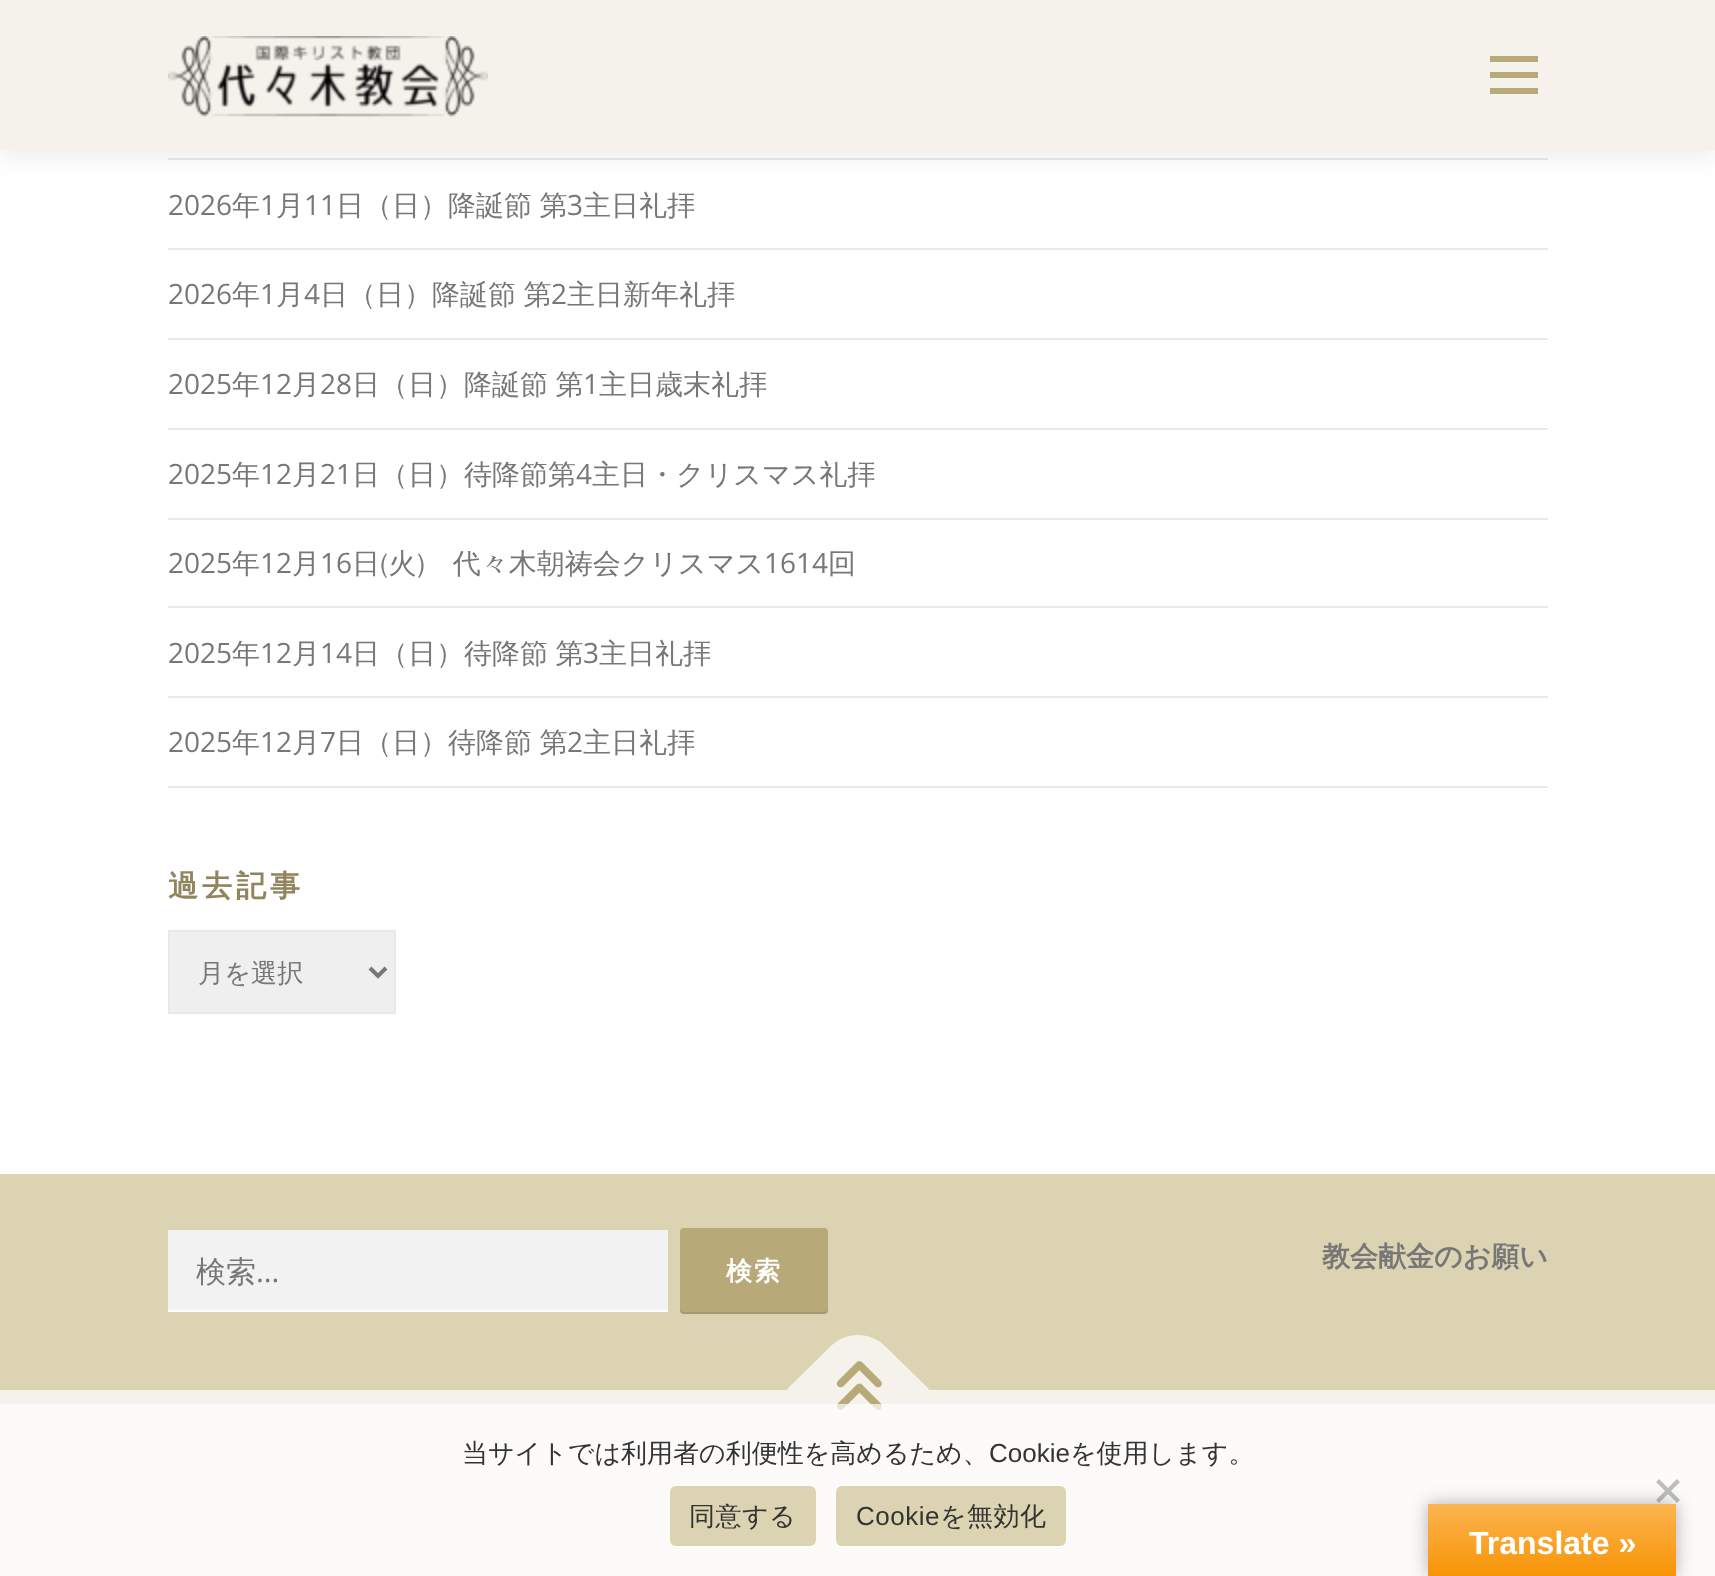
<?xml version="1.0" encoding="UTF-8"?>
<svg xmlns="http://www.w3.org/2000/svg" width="1715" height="1576">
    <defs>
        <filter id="blur1" x="-50%" y="-200%" width="200%" height="500%"><feGaussianBlur stdDeviation="10"/></filter>
        <filter id="blur2" x="-50%" y="-200%" width="200%" height="500%"><feGaussianBlur stdDeviation="9"/></filter>
        <linearGradient id="g1" gradientUnits="userSpaceOnUse" x1="1552" y1="1504" x2="1552" y2="1576"><stop offset="0" stop-color="#FBB450"/><stop offset="1" stop-color="#F89406"/></linearGradient>
    </defs>
    <rect width="100%" height="100%" fill="#FFFFFF"/>
    <rect x="168" y="158" width="1380" height="2" fill="#E9E9E9"/>
    <rect x="0" y="10" width="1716" height="150" fill="#323232" fill-opacity="0.06" filter="url(#blur1)"/>
    <rect x="0" y="0" width="1715" height="150" fill="#F4F2EB"/>
    <image x="168" y="36" width="320" height="81" href="img_01.png"/>
    <rect x="1490" y="72" width="48" height="6" fill="#B8A978"/>
    <rect x="1490" y="56" width="48" height="6" fill="#B8A978"/>
    <rect x="1490" y="88" width="48" height="6" fill="#B8A978"/>
    <rect x="168" y="248" width="1380" height="2" fill="#E9E9E9"/>
    <text x="168" y="215" font-family="Open Sans" font-size="28" fill="#777777">2026</text>
    <text x="232" y="215" font-family="WenQuanYi Zen Hei" font-size="28" font-weight="500" fill="#777777">年</text>
    <text x="260" y="215" font-family="Open Sans" font-size="28" fill="#777777">1</text>
    <text x="276" y="215" font-family="WenQuanYi Zen Hei" font-size="28" font-weight="500" fill="#777777">月</text>
    <text x="304" y="215" font-family="Open Sans" font-size="28" fill="#777777">11</text>
    <text x="336" y="215" word-spacing="-1" font-family="WenQuanYi Zen Hei" font-size="28" font-weight="500" fill="#777777">日（日）降誕節 第</text>
    <text x="567" y="215" font-family="Open Sans" font-size="28" fill="#777777">3</text>
    <text x="583" y="215" font-family="WenQuanYi Zen Hei" font-size="28" font-weight="500" fill="#777777">主日礼拝</text>
    <rect x="168" y="338" width="1380" height="2" fill="#E9E9E9"/>
    <text x="168" y="304" font-family="Open Sans" font-size="28" fill="#777777">2026</text>
    <text x="232" y="304" font-family="WenQuanYi Zen Hei" font-size="28" font-weight="500" fill="#777777">年</text>
    <text x="260" y="304" font-family="Open Sans" font-size="28" fill="#777777">1</text>
    <text x="276" y="304" font-family="WenQuanYi Zen Hei" font-size="28" font-weight="500" fill="#777777">月</text>
    <text x="304" y="304" font-family="Open Sans" font-size="28" fill="#777777">4</text>
    <text x="320" y="304" word-spacing="-1" font-family="WenQuanYi Zen Hei" font-size="28" font-weight="500" fill="#777777">日（日）降誕節 第</text>
    <text x="551" y="304" font-family="Open Sans" font-size="28" fill="#777777">2</text>
    <text x="567" y="304" font-family="WenQuanYi Zen Hei" font-size="28" font-weight="500" fill="#777777">主日新年礼拝</text>
    <rect x="168" y="428" width="1380" height="2" fill="#E9E9E9"/>
    <text x="168" y="394" font-family="Open Sans" font-size="28" fill="#777777">2025</text>
    <text x="232" y="394" font-family="WenQuanYi Zen Hei" font-size="28" font-weight="500" fill="#777777">年</text>
    <text x="260" y="394" font-family="Open Sans" font-size="28" fill="#777777">12</text>
    <text x="292" y="394" font-family="WenQuanYi Zen Hei" font-size="28" font-weight="500" fill="#777777">月</text>
    <text x="320" y="394" font-family="Open Sans" font-size="28" fill="#777777">28</text>
    <text x="352" y="394" word-spacing="-1" font-family="WenQuanYi Zen Hei" font-size="28" font-weight="500" fill="#777777">日（日）降誕節 第</text>
    <text x="583" y="394" font-family="Open Sans" font-size="28" fill="#777777">1</text>
    <text x="599" y="394" font-family="WenQuanYi Zen Hei" font-size="28" font-weight="500" fill="#777777">主日歳末礼拝</text>
    <rect x="168" y="518" width="1380" height="2" fill="#E9E9E9"/>
    <text x="168" y="484" font-family="Open Sans" font-size="28" fill="#777777">2025</text>
    <text x="232" y="484" font-family="WenQuanYi Zen Hei" font-size="28" font-weight="500" fill="#777777">年</text>
    <text x="260" y="484" font-family="Open Sans" font-size="28" fill="#777777">12</text>
    <text x="292" y="484" font-family="WenQuanYi Zen Hei" font-size="28" font-weight="500" fill="#777777">月</text>
    <text x="320" y="484" font-family="Open Sans" font-size="28" fill="#777777">21</text>
    <text x="352" y="484" font-family="WenQuanYi Zen Hei" font-size="28" font-weight="500" fill="#777777">日（日）待降節第</text>
    <text x="576" y="484" font-family="Open Sans" font-size="28" fill="#777777">4</text>
    <text x="592" y="484" font-family="WenQuanYi Zen Hei" font-size="28" font-weight="500" fill="#777777">主日・クリスマス礼拝</text>
    <rect x="168" y="606" width="1380" height="2" fill="#E9E9E9"/>
    <text x="168" y="573" font-family="Open Sans" font-size="28" fill="#777777">2025</text>
    <text x="232" y="573" font-family="WenQuanYi Zen Hei" font-size="28" font-weight="500" fill="#777777">年</text>
    <text x="260" y="573" font-family="Open Sans" font-size="28" fill="#777777">12</text>
    <text x="292" y="573" font-family="WenQuanYi Zen Hei" font-size="28" font-weight="500" fill="#777777">月</text>
    <text x="320" y="573" font-family="Open Sans" font-size="28" fill="#777777">16</text>
    <text x="352" y="573" font-family="WenQuanYi Zen Hei" font-size="28" font-weight="500" fill="#777777">日(火)　代々木朝祷会クリスマス</text>
    <text x="764" y="573" font-family="Open Sans" font-size="28" fill="#777777">1614</text>
    <text x="828" y="573" font-family="WenQuanYi Zen Hei" font-size="28" font-weight="500" fill="#777777">回</text>
    <rect x="168" y="696" width="1380" height="2" fill="#E9E9E9"/>
    <text x="168" y="663" font-family="Open Sans" font-size="28" fill="#777777">2025</text>
    <text x="232" y="663" font-family="WenQuanYi Zen Hei" font-size="28" font-weight="500" fill="#777777">年</text>
    <text x="260" y="663" font-family="Open Sans" font-size="28" fill="#777777">12</text>
    <text x="292" y="663" font-family="WenQuanYi Zen Hei" font-size="28" font-weight="500" fill="#777777">月</text>
    <text x="320" y="663" font-family="Open Sans" font-size="28" fill="#777777">14</text>
    <text x="352" y="663" word-spacing="-1" font-family="WenQuanYi Zen Hei" font-size="28" font-weight="500" fill="#777777">日（日）待降節 第</text>
    <text x="583" y="663" font-family="Open Sans" font-size="28" fill="#777777">3</text>
    <text x="599" y="663" font-family="WenQuanYi Zen Hei" font-size="28" font-weight="500" fill="#777777">主日礼拝</text>
    <rect x="168" y="786" width="1380" height="2" fill="#E9E9E9"/>
    <text x="168" y="752" font-family="Open Sans" font-size="28" fill="#777777">2025</text>
    <text x="232" y="752" font-family="WenQuanYi Zen Hei" font-size="28" font-weight="500" fill="#777777">年</text>
    <text x="260" y="752" font-family="Open Sans" font-size="28" fill="#777777">12</text>
    <text x="292" y="752" font-family="WenQuanYi Zen Hei" font-size="28" font-weight="500" fill="#777777">月</text>
    <text x="320" y="752" font-family="Open Sans" font-size="28" fill="#777777">7</text>
    <text x="336" y="752" word-spacing="-1" font-family="WenQuanYi Zen Hei" font-size="28" font-weight="500" fill="#777777">日（日）待降節 第</text>
    <text x="567" y="752" font-family="Open Sans" font-size="28" fill="#777777">2</text>
    <text x="583" y="752" font-family="WenQuanYi Zen Hei" font-size="28" font-weight="500" fill="#777777">主日礼拝</text>
    <text x="168" y="896" font-family="WenQuanYi Zen Hei" font-size="30" font-weight="700" letter-spacing="4" fill="#91855E">過去記事</text>
    <rect x="169" y="931" width="226" height="82" fill="#EFEFEF" stroke="#E9E9E9" stroke-width="2"/>
    <path d="M 370 968 L 378 976 L 386 968" fill="none" stroke="#777777" stroke-width="4"/>
    <text x="198" y="982" font-family="WenQuanYi Zen Hei" font-size="26.25" font-weight="500" fill="#777777">月を選択</text>
    <rect x="0" y="1174" width="1715" height="216" fill="#DBD3B1"/>
    <rect x="168" y="1230" width="500" height="80" fill="#F2F2F2"/>
    <rect x="168" y="1310" width="500" height="2" fill="#FFFFFF"/>
    <text x="196" y="1282" font-family="WenQuanYi Zen Hei" font-size="30" font-weight="500" fill="#777777">検索</text>
    <text x="256" y="1282" font-family="Open Sans" font-size="30" fill="#777777">…</text>
    <rect x="680" y="1228" width="148" height="86" rx="4" fill="#B8A978"/>
    <path d="M 680 1308 V 1310 C 680 1312 682 1314 684 1314 H 824 C 826 1314 828 1312 828 1310 V 1308 L 827 1311 L 824 1312 H 684 C 682 1312 680 1310 680 1308 Z" fill="#000000" fill-opacity="0.1"/>
    <text x="726" y="1280" font-family="WenQuanYi Zen Hei" font-size="26" font-weight="700" letter-spacing="2" fill="#FFFFFF">検索</text>
    <text x="1322" y="1266" font-family="WenQuanYi Zen Hei" font-size="28" font-weight="700" fill="#777777">教会献金のお願い</text>
    <rect x="0" y="1390" width="1715" height="186" fill="#F4F2EB"/>
    <path d="M 787 1389 L 830 1347 C 845 1331 871 1331 886 1347 L 929 1389 L 858 1460 Z" fill="#F4F2EB"/>
    <image x="836" y="1361" width="46" height="49" href="img_02.png"/>
    <rect x="0" y="1404" width="1715" height="172" fill="#FFFFFF" fill-opacity="0.7"/>
    <text x="462" y="1462" font-family="WenQuanYi Zen Hei" font-size="26" font-weight="500" fill="#333333">当サイトでは利用者の利便性を高めるため、</text>
    <text x="989" y="1462" font-family="Liberation Sans" font-size="26" fill="#333333">Cookie</text>
    <text x="1070" y="1462" font-family="WenQuanYi Zen Hei" font-size="26" font-weight="500" fill="#333333">を使用します。</text>
    <path d="M 1677 1479 L 1680 1482 L 1659 1503 L 1656 1500 Z" fill="#BEBEBC"/>
    <path d="M 1656 1482 L 1659 1479 L 1680 1500 L 1677 1503 Z" fill="#BEBEBC"/>
    <rect x="670" y="1486" width="146" height="60" rx="6" fill="#DBD3B1"/>
    <text x="689" y="1525" font-family="WenQuanYi Zen Hei" font-size="26" font-weight="500" letter-spacing="0.5" fill="#333333">同意する</text>
    <rect x="836" y="1486" width="230" height="60" rx="6" fill="#DBD3B1"/>
    <text x="856" y="1525" font-family="Liberation Sans" font-size="26" letter-spacing="0.5" fill="#333333">Cookie</text>
    <text x="940" y="1525" font-family="WenQuanYi Zen Hei" font-size="26" font-weight="500" letter-spacing="0.5" fill="#333333">を無効化</text>
    <rect x="1428" y="1504" width="248" height="72" fill="#000000" fill-opacity="0.3" filter="url(#blur2)"/>
    <rect x="1428" y="1504" width="248" height="72" fill="url(#g1)"/>
    <text x="1469" y="1554" font-family="Liberation Sans" font-size="32" font-weight="700" fill="#FFFFFF">Translate »</text>
</svg>
